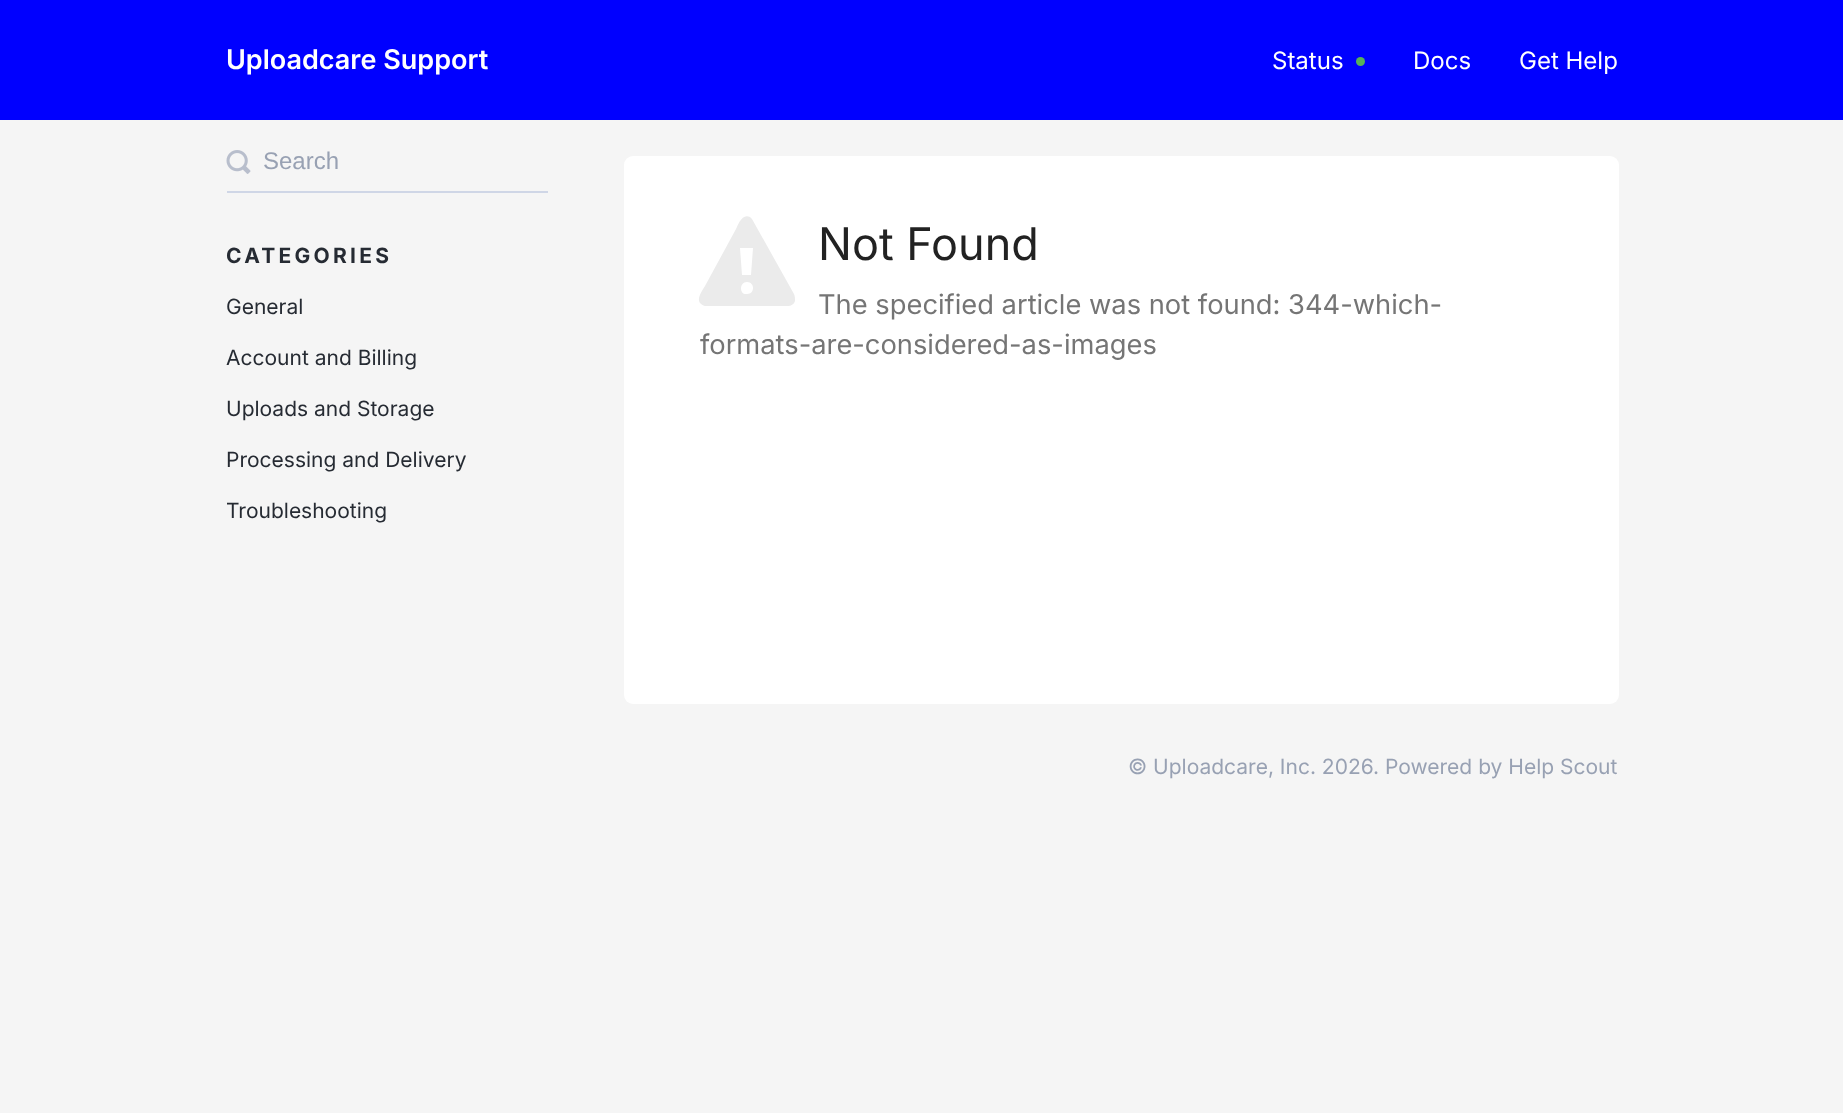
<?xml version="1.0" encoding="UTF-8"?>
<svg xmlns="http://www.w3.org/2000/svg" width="1843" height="1113">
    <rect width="100%" height="100%" fill="#F5F5F5"/>
    <rect x="0" y="0" width="1843" height="120" fill="#0000FF"/>
    <text x="226" y="69" font-family="Inter" font-size="27" font-weight="600" fill="#FFFFFF">Uploadcare Support</text>
    <text x="1272" y="69" font-family="Inter" font-size="24" fill="#FFFFFF">Status</text>
    <circle cx="1360.5" cy="61.5" r="4.5" fill="#57B158"/>
    <text x="1413" y="69" font-family="Inter" font-size="24" fill="#FFFFFF">Docs</text>
    <text x="1519" y="69" font-family="Inter" font-size="24" fill="#FFFFFF">Get Help</text>
    <image x="226" y="150" width="25" height="24" href="img_01.png"/>
    <rect x="227" y="191" width="321" height="2" fill="#CFD6E6"/>
    <text x="263" y="169" font-family="Liberation Sans" font-size="24" fill="#98A1B3">Search</text>
    <text x="226" y="263" font-family="Inter" font-size="21" font-weight="700" letter-spacing="3.25" fill="#262B33">CATEGORIES</text>
    <text x="226" y="314" font-family="Inter" font-size="21" fill="#262B33">General</text>
    <text x="226" y="365" font-family="Inter" font-size="21" fill="#262B33">Account and Billing</text>
    <text x="226" y="416" font-family="Inter" font-size="21" fill="#262B33">Uploads and Storage</text>
    <text x="226" y="467" font-family="Inter" font-size="21" fill="#262B33">Processing and Delivery</text>
    <text x="226" y="518" font-family="Inter" font-size="21" fill="#262B33">Troubleshooting</text>
    <rect x="624" y="156" width="995" height="548" rx="9" fill="#FFFFFF"/>
    <path d="M 794 294 L 752 219 L 750 217 C 742 213 738 225 736 229 L 705 286 C 702 291 693 303 705 306 H 782 C 787 306 793 307 795 301 C 795 299 795 296 794 294 Z M 753 248 L 751 275 H 742 L 740 248 Z M 747 294 C 739 295 739 282 747 282 C 755 282 755 294 747 294 Z" fill="#EBEBEB"/>
    <text x="818" y="260" font-family="Inter" font-size="45" fill="#222222">Not Found</text>
    <text x="818" y="314" font-family="Inter" font-size="27.3" fill="#757575">The specified article was not found: 344-which-</text>
    <text x="700" y="354" font-family="Inter" font-size="27.3" fill="#757575">formats-are-considered-as-images</text>
    <text x="1128" y="774" font-family="Inter" font-size="21" fill="#98A1B3">© Uploadcare, Inc. 2026. Powered by Help Scout</text>
</svg>
